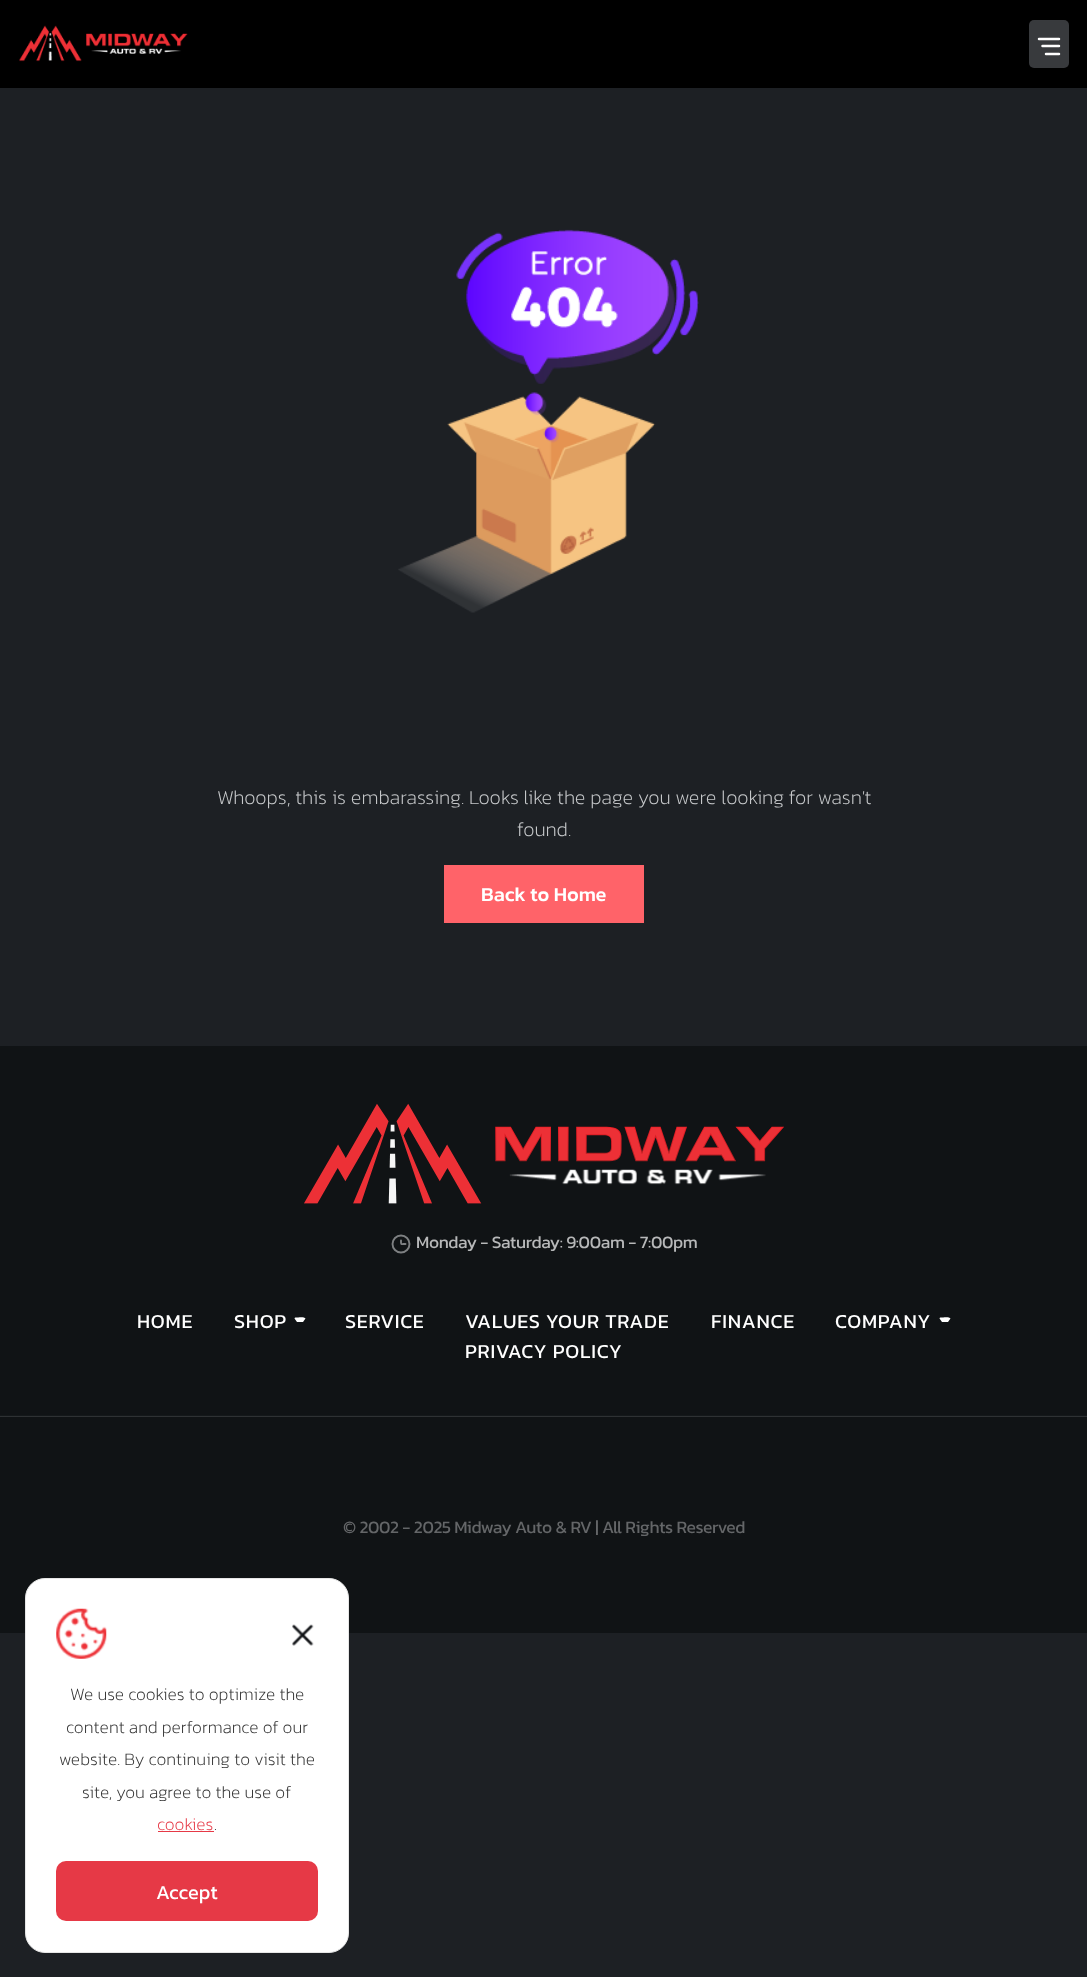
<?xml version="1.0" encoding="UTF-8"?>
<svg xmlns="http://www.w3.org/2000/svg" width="1087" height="1977">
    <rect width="100%" height="100%" fill="#1D2024"/>
    <rect x="0" y="0" width="1087" height="88" fill="#000000"/>
    <image x="19" y="25" width="169" height="37" href="img_01.png"/>
    <rect x="1029" y="20" width="40" height="48" rx="5" fill="#383A3D"/>
    <path d="M 1039 39 H 1059 M 1042.5 46 H 1059 M 1046 54 H 1059" fill="none" stroke="#FFFFFF" stroke-width="2.5" stroke-linecap="round" stroke-linejoin="round"/>
    <image x="398" y="229" width="301" height="384" href="img_02.png"/>
    <text x="217" y="804" font-family="Kanit" font-size="20" font-weight="200" fill="#C6C8CA">Whoops, this is embarassing. Looks like the page you were looking for wasn't</text>
    <text x="517" y="836" font-family="Kanit" font-size="20" font-weight="200" fill="#C6C8CA">found.</text>
    <rect x="444" y="865" width="200" height="58" fill="#FF6369"/>
    <text x="481" y="901" font-family="Kanit" font-size="20" font-weight="500" fill="#FFFFFF">Back to Home</text>
    <rect x="0" y="1046" width="1087" height="587" fill="#101315"/>
    <image x="304" y="1103" width="480" height="101" href="img_03.png"/>
    <circle cx="401" cy="1244" r="8.5" fill="none" stroke="#7E8082" stroke-width="1.9"/>
    <text x="416" y="1248" font-family="Kanit" font-size="17.5" letter-spacing="-0.35" fill="#B7B8B9">Monday - Saturday: 9:00am - 7:00pm</text>
    <path d="M 405.5 1244 C 400.5 1244 401 1245 401 1240.5" fill="none" stroke="#7E8082" stroke-width="1.9" stroke-linecap="round"/>
    <text x="137" y="1328" font-family="Kanit" font-size="20" letter-spacing="0.75" fill="#FFFFFF">HOME</text>
    <text x="234" y="1328" font-family="Kanit" font-size="20" letter-spacing="0.75" fill="#FFFFFF">SHOP</text>
    <path d="M 296 1317.5 C 298 1317.5 304.5 1316.5 305.5 1318.5 L 303 1322 H 297 L 294.5 1318.5 C 294.5 1318 295 1317.5 296 1317.5 Z" fill="#FFFFFF"/>
    <text x="345" y="1328" font-family="Kanit" font-size="20" letter-spacing="0.75" fill="#FFFFFF">SERVICE</text>
    <text x="465" y="1328" font-family="Kanit" font-size="20" letter-spacing="0.75" fill="#FFFFFF">VALUES YOUR TRADE</text>
    <text x="711" y="1328" font-family="Kanit" font-size="20" letter-spacing="0.75" fill="#FFFFFF">FINANCE</text>
    <text x="835" y="1328" font-family="Kanit" font-size="20" letter-spacing="0.75" fill="#FFFFFF">COMPANY</text>
    <path d="M 941 1317.5 C 943 1317.5 949.5 1316.5 950.5 1318.5 L 948 1322 H 942 L 939.5 1318.5 C 939.5 1318 940 1317.5 941 1317.5 Z" fill="#FFFFFF"/>
    <text x="465" y="1358" font-family="Kanit" font-size="20" letter-spacing="0.75" fill="#FFFFFF">PRIVACY POLICY</text>
    <rect x="0" y="1415" width="1087" height="1" fill="#14181A"/>
    <rect x="0" y="1416" width="1087" height="1" fill="#2E3133"/>
    <text x="343" y="1533" font-family="Kanit" font-size="17.5" letter-spacing="-0.35" fill="#646668">© 2002 - 2025 Midway Auto &amp; RV | All Rights Reserved</text>
    <rect x="25.5" y="1578.5" width="323" height="374" rx="19.5" fill="#FFFFFF" stroke="#E6E6E6"/>
    <image x="56" y="1608" width="51" height="51" href="img_04.png"/>
    <image x="292" y="1624" width="22" height="22" href="img_05.png"/>
    <text x="70" y="1700" font-family="Kanit" font-size="17.5" font-weight="200" fill="#333333">We use cookies to optimize the</text>
    <text x="66" y="1733" font-family="Kanit" font-size="17.5" font-weight="200" fill="#333333">content and performance of our</text>
    <text x="59" y="1765" font-family="Kanit" font-size="17.5" font-weight="200" fill="#333333">website. By continuing to visit the</text>
    <text x="82" y="1798" font-family="Kanit" font-size="17.5" font-weight="200" fill="#333333">site, you agree to the use of</text>
    <text x="157" y="1830" font-family="Kanit" font-size="17.5" font-weight="200" fill="#E63946">cookies</text>
    <rect x="158" y="1831" width="56" height="1" fill="#E63946"/>
    <text x="214" y="1830" font-family="Kanit" font-size="17.5" font-weight="200" fill="#333333">.</text>
    <rect x="56" y="1861" width="262" height="60" rx="10" fill="#E63946"/>
    <text x="156" y="1899" font-family="Kanit" font-size="20" fill="#FFFFFF">Accept</text>
</svg>
